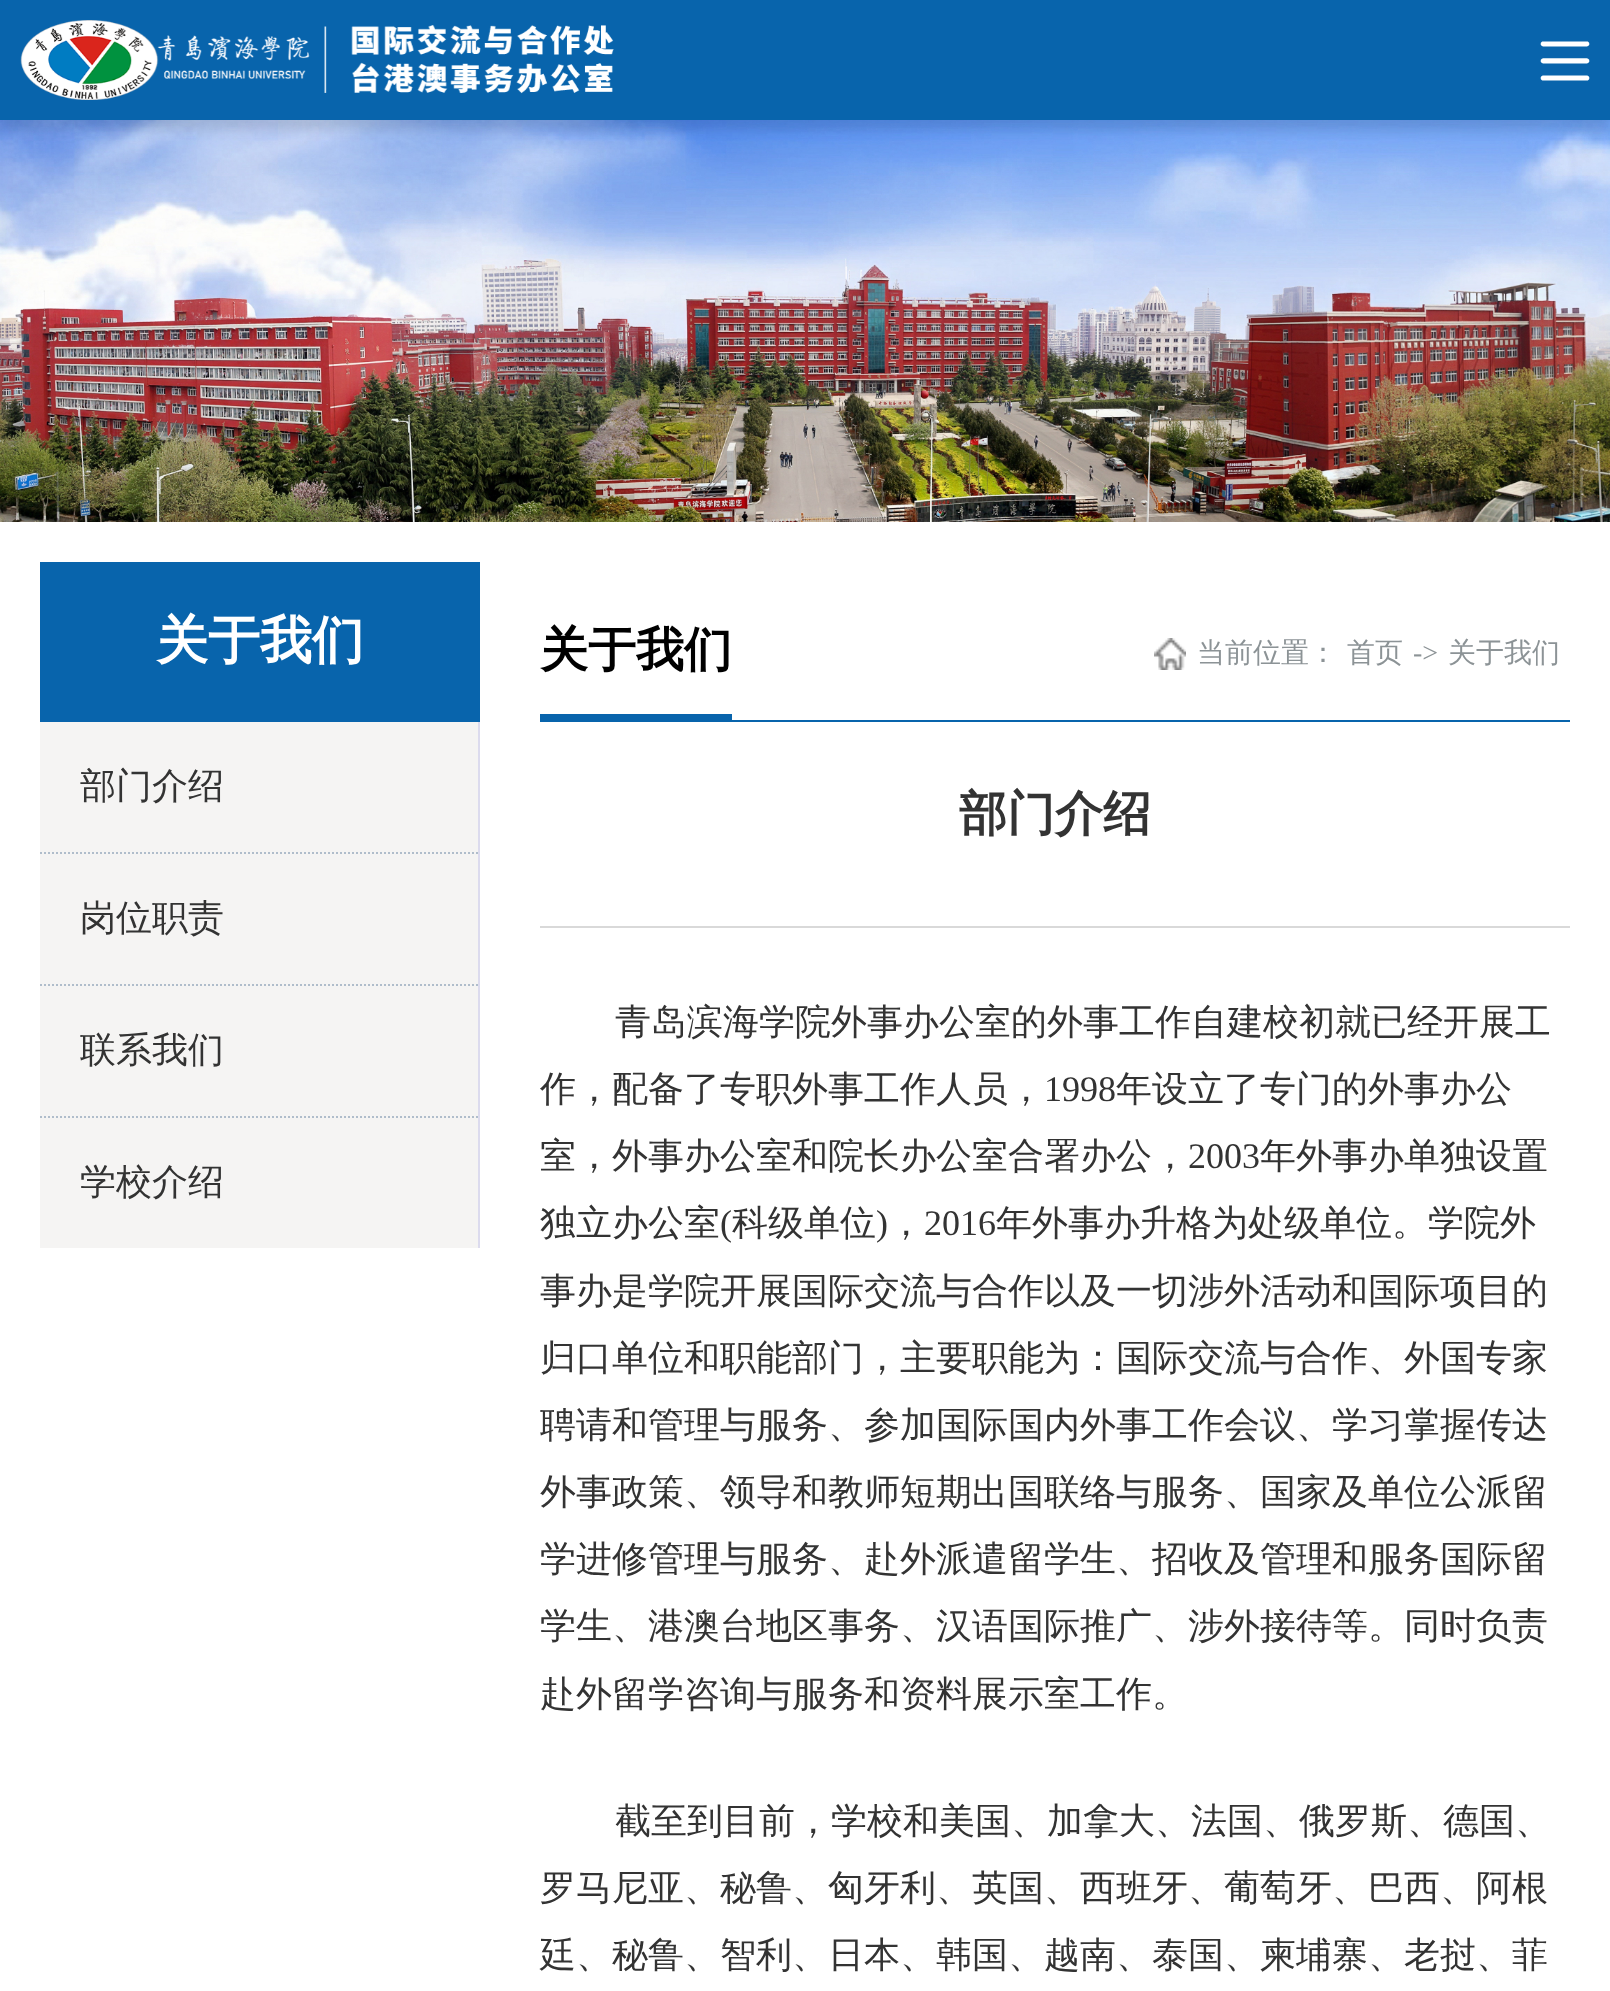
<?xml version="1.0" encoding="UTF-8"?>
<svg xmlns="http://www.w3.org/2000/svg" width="1610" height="1991">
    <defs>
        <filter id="blur1" x="-50%" y="-200%" width="200%" height="500%"><feGaussianBlur stdDeviation="5"/></filter>
    </defs>
    <rect width="100%" height="100%" fill="#FFFFFF"/>
    <image x="0" y="120" width="1610" height="402" href="img_03.png"/>
    <rect x="0" y="10" width="1610" height="120" fill="#000000" fill-opacity="0.1" filter="url(#blur1)"/>
    <rect x="0" y="0" width="1610" height="120" fill="#0864AC"/>
    <image x="20" y="20" width="594" height="80" href="img_01.png"/>
    <image x="1540" y="41" width="50" height="40" href="img_02.png"/>
    <rect x="40" y="562" width="440" height="160" fill="#0864AC"/>
    <text x="156" y="658" font-family="WenQuanYi Zen Hei" font-size="52" font-weight="700" fill="#FFFFFF">关于我们</text>
    <rect x="40" y="722" width="438" height="526" fill="#F5F4F3"/>
    <rect x="478" y="722" width="2" height="526" fill="#DCDBEE"/>
    <path d="M 40 853 H 478" fill="none" stroke="#B0BDCB" stroke-width="2" stroke-dasharray="2 2"/>
    <text x="80" y="798" font-family="WenQuanYi Zen Hei" font-size="36" font-weight="500" fill="#333333">部门介绍</text>
    <path d="M 40 985 H 478" fill="none" stroke="#B0BDCB" stroke-width="2" stroke-dasharray="2 2"/>
    <text x="80" y="930" font-family="WenQuanYi Zen Hei" font-size="36" font-weight="500" fill="#333333">岗位职责</text>
    <path d="M 40 1117 H 478" fill="none" stroke="#B0BDCB" stroke-width="2" stroke-dasharray="2 2"/>
    <text x="80" y="1062" font-family="WenQuanYi Zen Hei" font-size="36" font-weight="500" fill="#333333">联系我们</text>
    <text x="80" y="1194" font-family="WenQuanYi Zen Hei" font-size="36" font-weight="500" fill="#333333">学校介绍</text>
    <rect x="540" y="720" width="1030" height="2" fill="#0864AC"/>
    <text x="540" y="666" font-family="WenQuanYi Zen Hei" font-size="48" font-weight="700" fill="#000000">关于我们</text>
    <rect x="540" y="714" width="192" height="6" fill="#0864AC"/>
    <image x="1154" y="638" width="32" height="32" href="img_04.png"/>
    <text x="1197" y="662" font-family="WenQuanYi Zen Hei" font-size="28" font-weight="500" fill="#8C9396">当前位置：</text>
    <text x="1347" y="662" font-family="WenQuanYi Zen Hei" font-size="28" font-weight="500" fill="#8C9396">首页</text>
    <text x="1413" y="662" font-family="Liberation Serif" font-size="28" fill="#8C9396">-&gt;</text>
    <text x="1448" y="662" font-family="WenQuanYi Zen Hei" font-size="28" font-weight="500" fill="#8C9396">关于我们</text>
    <text x="959" y="830" font-family="WenQuanYi Zen Hei" font-size="48" font-weight="700" fill="#333333">部门介绍</text>
    <rect x="540" y="926" width="1030" height="2" fill="#D9D9D9"/>
    <text x="615" y="1034" font-family="WenQuanYi Zen Hei" font-size="36" font-weight="500" fill="#333333">青岛滨海学院外事办公室的外事工作自建校初就已经开展工</text>
    <text x="540" y="1101" font-family="WenQuanYi Zen Hei" font-size="36" font-weight="500" fill="#333333">作，配备了专职外事工作人员，</text>
    <text x="1044" y="1101" font-family="Liberation Serif" font-size="36" fill="#333333">1998</text>
    <text x="1116" y="1101" font-family="WenQuanYi Zen Hei" font-size="36" font-weight="500" fill="#333333">年设立了专门的外事办公</text>
    <text x="540" y="1168" font-family="WenQuanYi Zen Hei" font-size="36" font-weight="500" fill="#333333">室，外事办公室和院长办公室合署办公，</text>
    <text x="1188" y="1168" font-family="Liberation Serif" font-size="36" fill="#333333">2003</text>
    <text x="1260" y="1168" font-family="WenQuanYi Zen Hei" font-size="36" font-weight="500" fill="#333333">年外事办单独设置</text>
    <text x="540" y="1235" font-family="WenQuanYi Zen Hei" font-size="36" font-weight="500" fill="#333333">独立办公室</text>
    <text x="720" y="1235" font-family="Liberation Serif" font-size="36" fill="#333333">(</text>
    <text x="732" y="1235" font-family="WenQuanYi Zen Hei" font-size="36" font-weight="500" fill="#333333">科级单位</text>
    <text x="876" y="1235" font-family="Liberation Serif" font-size="36" fill="#333333">)</text>
    <text x="888" y="1235" font-family="WenQuanYi Zen Hei" font-size="36" font-weight="500" fill="#333333">，</text>
    <text x="924" y="1235" font-family="Liberation Serif" font-size="36" fill="#333333">2016</text>
    <text x="996" y="1235" font-family="WenQuanYi Zen Hei" font-size="36" font-weight="500" fill="#333333">年外事办升格为处级单位。学院外</text>
    <text font-family="WenQuanYi Zen Hei" font-size="36" font-weight="500" fill="#333333">
        <tspan x="540" y="1303">事办是学院开展国际交流与合作以及一切涉外活动和国际项目的</tspan>
        <tspan x="540" y="1370">归口单位和职能部门，主要职能为：国际交流与合作、外国专家</tspan>
        <tspan x="540" y="1437">聘请和管理与服务、参加国际国内外事工作会议、学习掌握传达</tspan>
        <tspan x="540" y="1504">外事政策、领导和教师短期出国联络与服务、国家及单位公派留</tspan>
        <tspan x="540" y="1571">学进修管理与服务、赴外派遣留学生、招收及管理和服务国际留</tspan>
        <tspan x="540" y="1638">学生、港澳台地区事务、汉语国际推广、涉外接待等。同时负责</tspan>
        <tspan x="540" y="1706">赴外留学咨询与服务和资料展示室工作。</tspan>
    </text>
    <text x="615" y="1833" font-family="WenQuanYi Zen Hei" font-size="36" font-weight="500" fill="#333333">截至到目前，学校和美国、加拿大、法国、俄罗斯、德国、</text>
    <text font-family="WenQuanYi Zen Hei" font-size="36" font-weight="500" fill="#333333">
        <tspan x="540" y="1900">罗马尼亚、秘鲁、匈牙利、英国、西班牙、葡萄牙、巴西、阿根</tspan>
        <tspan x="540" y="1967">廷、秘鲁、智利、日本、韩国、越南、泰国、柬埔寨、老挝、菲</tspan>
    </text>
</svg>
